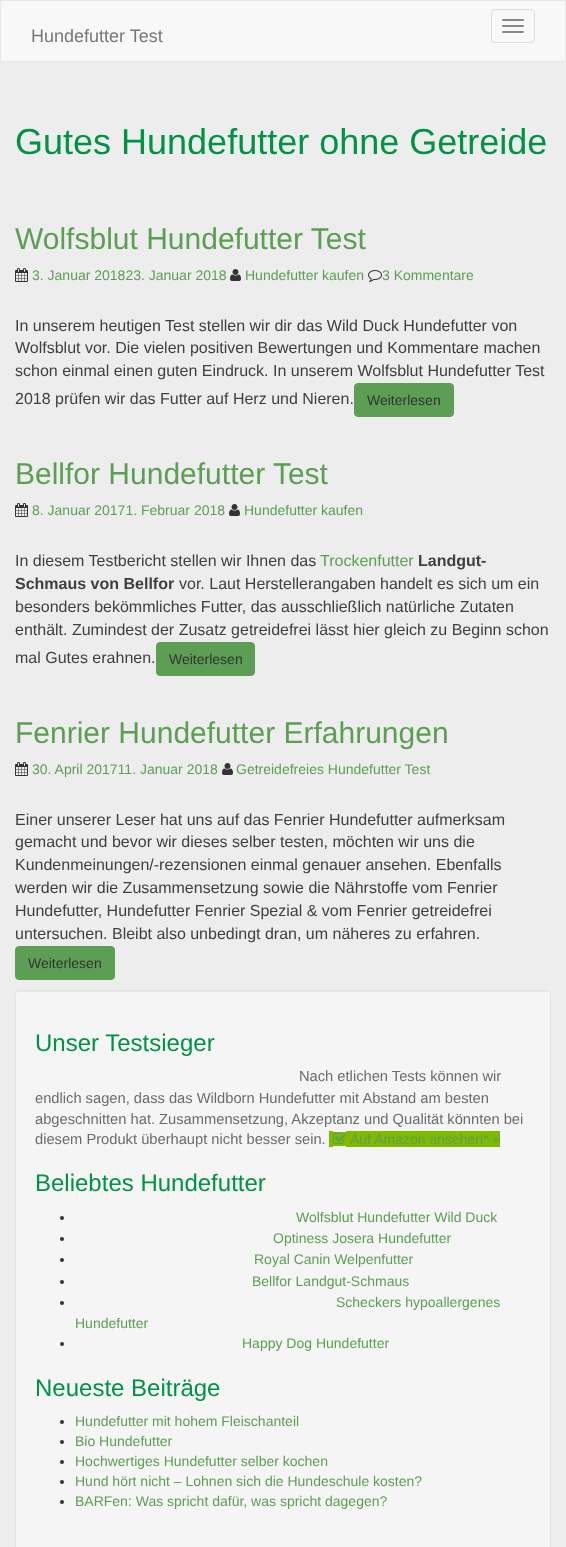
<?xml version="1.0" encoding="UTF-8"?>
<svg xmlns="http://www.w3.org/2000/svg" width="566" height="1547">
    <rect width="100%" height="100%" fill="#EDEDED"/>
    <rect x="0.5" y="0.5" width="565" height="61" fill="#F8F8F8" stroke="#E7E7E7"/>
    <text x="31" y="42" font-family="Liberation Sans" font-size="18" fill="#777777">Hundefutter Test</text>
    <rect x="491.5" y="9.5" width="43" height="33" rx="3.5" fill="none" stroke="#DDDDDD"/>
    <rect x="502" y="19" width="22" height="2" rx="1" fill="#888888"/>
    <rect x="502" y="25" width="22" height="2" rx="1" fill="#888888"/>
    <rect x="502" y="31" width="22" height="2" rx="1" fill="#888888"/>
    <text x="15" y="154" font-family="Liberation Sans" font-size="36" fill="#009245">Gutes Hundefutter ohne Getreide</text>
    <text x="15" y="249" font-family="Liberation Sans" font-size="30" fill="#5C9E53">Wolfsblut Hundefutter Test</text>
    <image x="15" y="268" width="13" height="14" href="img_01.png"/>
    <text x="32" y="280" font-family="Liberation Sans" font-size="14" fill="#5C9E53">3. Januar 201823. Januar 2018</text>
    <image x="230" y="269" width="11" height="12" href="img_02.png"/>
    <text x="245" y="280" font-family="Liberation Sans" font-size="14" fill="#5C9E53">Hundefutter kaufen</text>
    <image x="368" y="270" width="14" height="12" href="img_03.png"/>
    <text x="382" y="280" font-family="Liberation Sans" font-size="14" fill="#5C9E53">3 Kommentare</text>
    <text font-family="Liberation Sans" font-size="16" fill="#3F3F3F">
        <tspan x="15" y="331">In unserem heutigen Test stellen wir dir das Wild Duck Hundefutter von</tspan>
        <tspan x="15" y="353">Wolfsblut vor. Die vielen positiven Bewertungen und Kommentare machen</tspan>
        <tspan x="15" y="376">schon einmal einen guten Eindruck. In unserem Wolfsblut Hundefutter Test</tspan>
        <tspan x="15" y="404">2018 prüfen wir das Futter auf Herz und Nieren.</tspan>
    </text>
    <rect x="354.5" y="383.5" width="99" height="33" rx="3.5" fill="#5C9E53" stroke="#5C9E53"/>
    <text x="367" y="405" font-family="Liberation Sans" font-size="14" fill="#333333">Weiterlesen</text>
    <text x="15" y="484" font-family="Liberation Sans" font-size="30" fill="#5C9E53">Bellfor Hundefutter Test</text>
    <image x="15" y="503" width="13" height="14" href="img_01.png"/>
    <text x="32" y="515" font-family="Liberation Sans" font-size="14" fill="#5C9E53">8. Januar 20171. Februar 2018</text>
    <image x="229" y="504" width="11" height="12" href="img_02.png"/>
    <text x="244" y="515" font-family="Liberation Sans" font-size="14" fill="#5C9E53">Hundefutter kaufen</text>
    <text x="15" y="566" font-family="Liberation Sans" font-size="16" fill="#3F3F3F">In diesem Testbericht stellen wir Ihnen das</text>
    <text x="320" y="566" font-family="Liberation Sans" font-size="16" fill="#5C9E53">Trockenfutter</text>
    <text x="418" y="566" font-family="Liberation Sans" font-size="16" font-weight="700" fill="#3F3F3F">Landgut-</text>
    <text x="15" y="589" font-family="Liberation Sans" font-size="16" font-weight="700" fill="#3F3F3F">Schmaus von Bellfor</text>
    <text x="179" y="589" font-family="Liberation Sans" font-size="16" fill="#3F3F3F">vor. Laut Herstellerangaben handelt es sich um ein</text>
    <text font-family="Liberation Sans" font-size="16" fill="#3F3F3F">
        <tspan x="15" y="612">besonders bekömmliches Futter, das ausschließlich natürliche Zutaten</tspan>
        <tspan x="15" y="635">enthält. Zumindest der Zusatz getreidefrei lässt hier gleich zu Beginn schon</tspan>
        <tspan x="15" y="663">mal Gutes erahnen.</tspan>
    </text>
    <rect x="156.5" y="642.5" width="98" height="33" rx="3.5" fill="#5C9E53" stroke="#5C9E53"/>
    <text x="169" y="664" font-family="Liberation Sans" font-size="14" fill="#333333">Weiterlesen</text>
    <text x="15" y="743" font-family="Liberation Sans" font-size="30" fill="#5C9E53">Fenrier Hundefutter Erfahrungen</text>
    <image x="15" y="762" width="13" height="14" href="img_01.png"/>
    <text x="32" y="774" font-family="Liberation Sans" font-size="14" fill="#5C9E53">30. April 201711. Januar 2018</text>
    <image x="222" y="763" width="11" height="12" href="img_02.png"/>
    <text x="236" y="774" font-family="Liberation Sans" font-size="14" fill="#5C9E53">Getreidefreies Hundefutter Test</text>
    <text font-family="Liberation Sans" font-size="16" fill="#3F3F3F">
        <tspan x="15" y="825">Einer unserer Leser hat uns auf das Fenrier Hundefutter aufmerksam</tspan>
        <tspan x="15" y="847">gemacht und bevor wir dieses selber testen, möchten wir uns die</tspan>
        <tspan x="15" y="870">Kundenmeinungen/-rezensionen einmal genauer ansehen. Ebenfalls</tspan>
        <tspan x="15" y="893">werden wir die Zusammensetzung sowie die Nährstoffe vom Fenrier</tspan>
        <tspan x="15" y="916">Hundefutter, Hundefutter Fenrier Spezial &amp; vom Fenrier getreidefrei</tspan>
        <tspan x="15" y="939">untersuchen. Bleibt also unbedingt dran, um näheres zu erfahren.</tspan>
    </text>
    <rect x="15.5" y="946.5" width="99" height="33" rx="3.5" fill="#5C9E53" stroke="#5C9E53"/>
    <text x="28" y="968" font-family="Liberation Sans" font-size="14" fill="#333333">Weiterlesen</text>
    <rect x="15" y="990" width="536" height="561" rx="4" fill="#F5F5F5"/>
    <path d="M 19 992 H 547 C 549 992 550 993 550 995 L 549 992 L 547 991 H 19 C 17 991 16 993 16 995 C 16 993 17 992 19 992 Z" fill="#E9E9E9"/>
    <rect x="15.5" y="990.5" width="535" height="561" rx="3.5" fill="none" stroke="#E3E3E3"/>
    <text x="35" y="1051" font-family="Liberation Sans" font-size="24" fill="#009245">Unser Testsieger</text>
    <text x="299" y="1081" font-family="Liberation Sans" font-size="14.7" fill="#6B6B6B">Nach etlichen Tests können wir</text>
    <text font-family="Liberation Sans" font-size="14.7" fill="#6B6B6B">
        <tspan x="35" y="1103">endlich sagen, dass das Wildborn Hundefutter mit Abstand am besten</tspan>
        <tspan x="35" y="1124">abgeschnitten hat. Zusammensetzung, Akzeptanz und Qualität könnten bei</tspan>
        <tspan x="35" y="1144">diesem Produkt überhaupt nicht besser sein.</tspan>
    </text>
    <rect x="329" y="1131" width="4" height="16" fill="#7FBA00"/>
    <rect x="333" y="1132" width="13" height="14" fill="#7FBA00"/>
    <rect x="346" y="1131" width="154" height="16" fill="#7FBA00"/>
    <image x="333" y="1133" width="13" height="11" href="img_04.png"/>
    <text x="350" y="1144" font-family="Liberation Sans" font-size="14" fill="#5C9E53">Auf Amazon ansehen* »</text>
    <text x="35" y="1191" font-family="Liberation Sans" font-size="24" fill="#009245">Beliebtes Hundefutter</text>
    <circle cx="62" cy="1218" r="2" fill="#333333"/>
    <text x="296" y="1222" font-family="Liberation Sans" font-size="14" fill="#5C9E53">Wolfsblut Hundefutter Wild Duck</text>
    <circle cx="62" cy="1239" r="2" fill="#333333"/>
    <text x="273" y="1243" font-family="Liberation Sans" font-size="14" fill="#5C9E53">Optiness Josera Hundefutter</text>
    <circle cx="62" cy="1260" r="2" fill="#333333"/>
    <text x="254" y="1264" font-family="Liberation Sans" font-size="14" fill="#5C9E53">Royal Canin Welpenfutter</text>
    <circle cx="62" cy="1282" r="2" fill="#333333"/>
    <text x="252" y="1286" font-family="Liberation Sans" font-size="14" fill="#5C9E53">Bellfor Landgut-Schmaus</text>
    <circle cx="62" cy="1303" r="2" fill="#333333"/>
    <text x="336" y="1307" font-family="Liberation Sans" font-size="14" fill="#5C9E53">Scheckers hypoallergenes</text>
    <text x="75" y="1328" font-family="Liberation Sans" font-size="14" fill="#5C9E53">Hundefutter</text>
    <circle cx="62" cy="1344" r="2" fill="#333333"/>
    <text x="242" y="1348" font-family="Liberation Sans" font-size="14" fill="#5C9E53">Happy Dog Hundefutter</text>
    <text x="35" y="1396" font-family="Liberation Sans" font-size="24" fill="#009245">Neueste Beiträge</text>
    <circle cx="62" cy="1422" r="2" fill="#333333"/>
    <text x="75" y="1426" font-family="Liberation Sans" font-size="14" fill="#5C9E53">Hundefutter mit hohem Fleischanteil</text>
    <circle cx="62" cy="1442" r="2" fill="#333333"/>
    <text x="75" y="1446" font-family="Liberation Sans" font-size="14" fill="#5C9E53">Bio Hundefutter</text>
    <circle cx="62" cy="1462" r="2" fill="#333333"/>
    <text x="75" y="1466" font-family="Liberation Sans" font-size="14" fill="#5C9E53">Hochwertiges Hundefutter selber kochen</text>
    <circle cx="62" cy="1482" r="2" fill="#333333"/>
    <text x="75" y="1486" font-family="Liberation Sans" font-size="14" fill="#5C9E53">Hund hört nicht – Lohnen sich die Hundeschule kosten?</text>
    <circle cx="62" cy="1502" r="2" fill="#333333"/>
    <text x="75" y="1506" font-family="Liberation Sans" font-size="14" fill="#5C9E53">BARFen: Was spricht dafür, was spricht dagegen?</text>
</svg>
